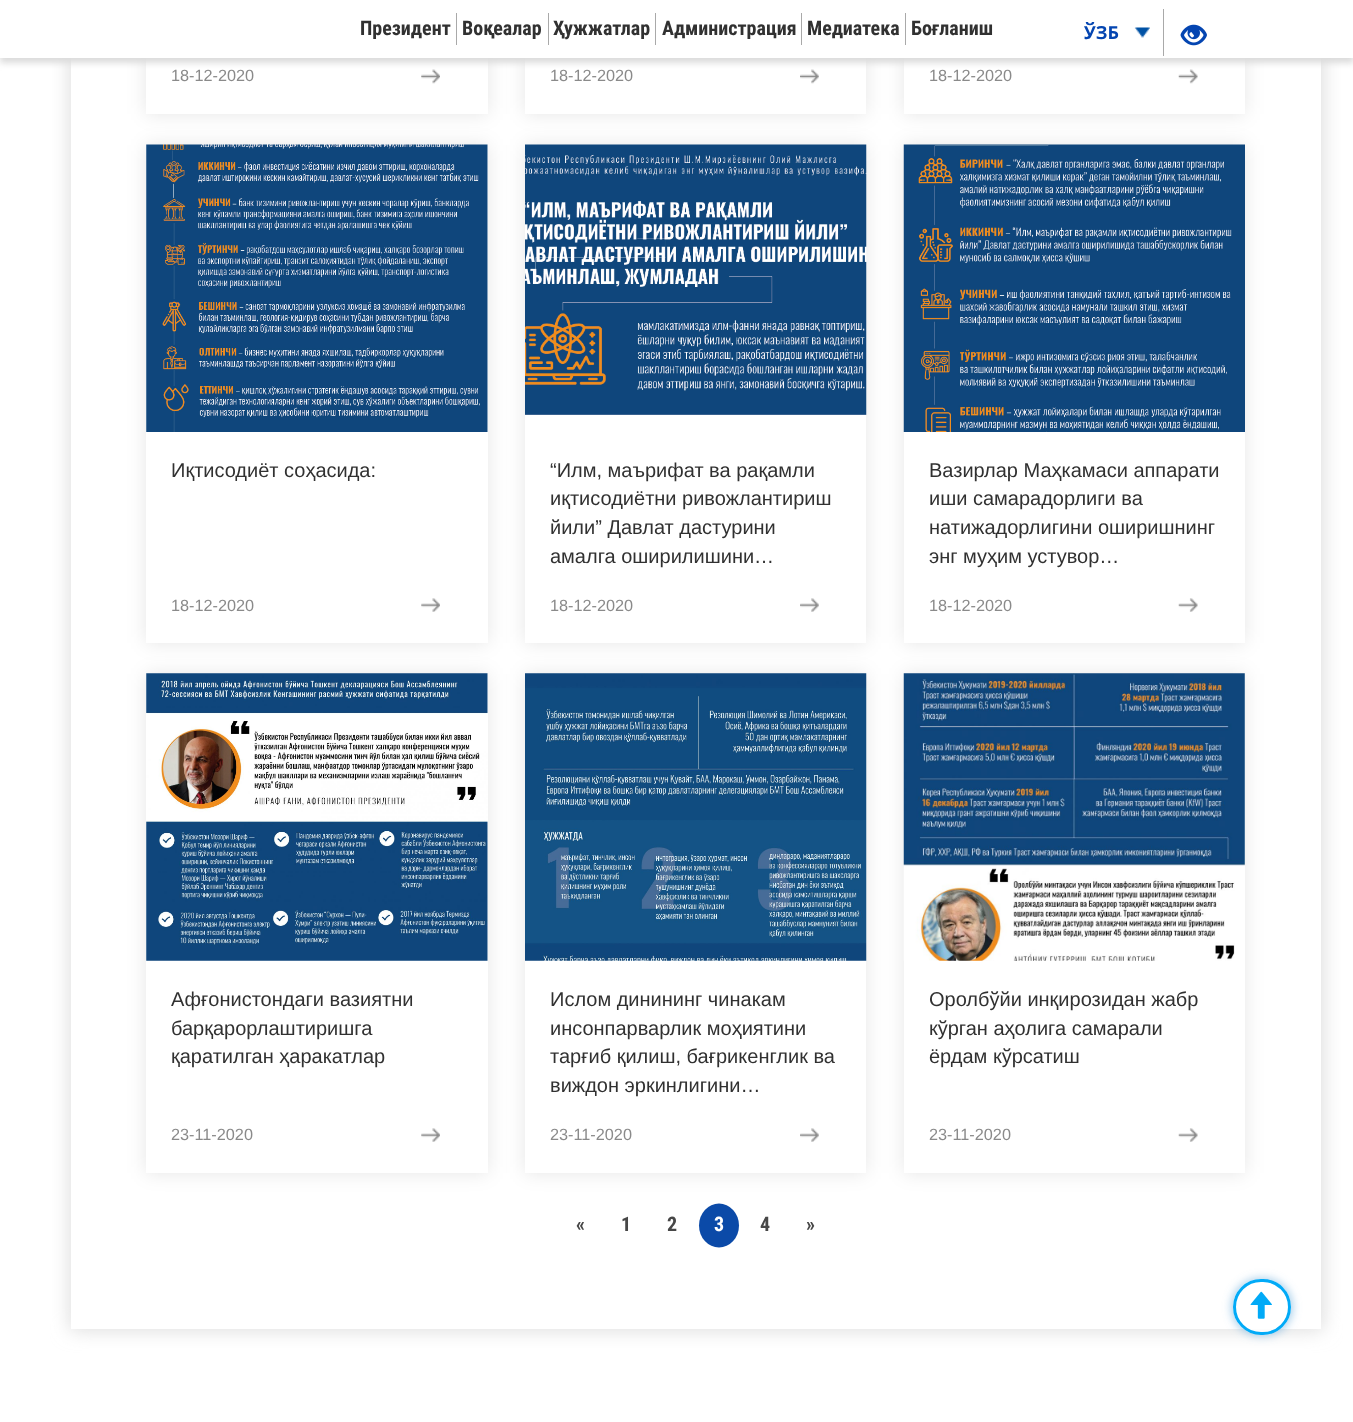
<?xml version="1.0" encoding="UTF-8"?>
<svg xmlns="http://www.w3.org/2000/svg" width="1353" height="1422">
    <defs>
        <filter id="blur1" x="-50%" y="-200%" width="200%" height="500%"><feGaussianBlur stdDeviation="9.5"/></filter>
        <clipPath id="clip1"><path d="M 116 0 H 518 V 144 H 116 Z M 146 -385 H 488 V 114 H 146 Z" clip-rule="evenodd"/></clipPath>
        <clipPath id="clip2"><path d="M 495 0 H 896 V 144 H 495 Z M 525 -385 H 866 V 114 H 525 Z" clip-rule="evenodd"/></clipPath>
        <clipPath id="clip3"><path d="M 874 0 H 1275 V 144 H 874 Z M 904 -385 H 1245 V 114 H 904 Z" clip-rule="evenodd"/></clipPath>
        <filter id="blur2" x="-50%" y="-200%" width="200%" height="500%"><feGaussianBlur stdDeviation="3"/></filter>
        <clipPath id="clip4"><path d="M 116 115 H 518 V 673 H 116 Z M 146 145 H 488 V 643 H 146 Z" clip-rule="evenodd"/></clipPath>
        <clipPath id="clip5"><path d="M 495 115 H 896 V 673 H 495 Z M 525 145 H 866 V 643 H 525 Z" clip-rule="evenodd"/></clipPath>
        <clipPath id="clip6"><path d="M 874 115 H 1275 V 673 H 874 Z M 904 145 H 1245 V 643 H 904 Z" clip-rule="evenodd"/></clipPath>
        <clipPath id="clip7"><path d="M 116 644 H 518 V 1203 H 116 Z M 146 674 H 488 V 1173 H 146 Z" clip-rule="evenodd"/></clipPath>
        <clipPath id="clip8"><path d="M 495 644 H 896 V 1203 H 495 Z M 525 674 H 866 V 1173 H 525 Z" clip-rule="evenodd"/></clipPath>
        <clipPath id="clip9"><path d="M 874 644 H 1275 V 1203 H 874 Z M 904 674 H 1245 V 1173 H 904 Z" clip-rule="evenodd"/></clipPath>
        <clipPath id="clip10"><path d="M 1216 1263 H 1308 V 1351 H 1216 Z M 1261 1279 H 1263 C 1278.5 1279 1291 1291.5 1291 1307 C 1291 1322.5 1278.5 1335 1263 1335 H 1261 C 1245.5 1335 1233 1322.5 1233 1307 C 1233 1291.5 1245.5 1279 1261 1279 Z" clip-rule="evenodd"/></clipPath>
        <filter id="blur3" x="-50%" y="-200%" width="200%" height="500%"><feGaussianBlur stdDeviation="4.5"/></filter>
    </defs>
    <rect width="100%" height="100%" fill="#FFFFFF"/>
    <rect x="70" y="-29" width="1253" height="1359" fill="#DCDCDC" filter="url(#blur1)"/>
    <rect x="71" y="58" width="1250" height="1271" fill="#FFFFFF"/>
    <g clip-path="url(#clip1)">
        <rect x="146" y="-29" width="342" height="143" fill="#000000" fill-opacity="0.1" filter="url(#blur1)"/>
    </g>
    <image x="421" y="69" width="19" height="15" href="img_03.png"/>
    <g clip-path="url(#clip2)">
        <rect x="525" y="-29" width="341" height="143" fill="#000000" fill-opacity="0.1" filter="url(#blur1)"/>
    </g>
    <image x="800" y="69" width="19" height="15" href="img_04.png"/>
    <g clip-path="url(#clip3)">
        <rect x="904" y="-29" width="341" height="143" fill="#000000" fill-opacity="0.1" filter="url(#blur1)"/>
    </g>
    <image x="1178" y="69" width="20" height="15" href="img_05.png"/>
    <rect x="0" y="5" width="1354" height="58" fill="#DBDBDB" filter="url(#blur2)"/>
    <rect x="0" y="0" width="1353" height="58" fill="#FFFFFF"/>
    <text x="360" y="35" font-family="Roboto Condensed" font-size="20" font-weight="700" fill="#313131">Президент</text>
    <rect x="456" y="13" width="1" height="32" fill="#A9A9A9"/>
    <text x="462" y="35" font-family="Roboto Condensed" font-size="20" font-weight="700" fill="#313131">Воқеалар</text>
    <rect x="548" y="13" width="1" height="32" fill="#A9A9A9"/>
    <text x="553" y="35" font-family="Roboto Condensed" font-size="20" font-weight="700" fill="#313131">Ҳужжатлар</text>
    <rect x="655" y="13" width="1" height="32" fill="#A9A9A9"/>
    <text x="662" y="35" font-family="Roboto Condensed" font-size="20" font-weight="700" fill="#313131">Администрация</text>
    <rect x="801" y="13" width="1" height="32" fill="#A9A9A9"/>
    <text x="807" y="35" font-family="Roboto Condensed" font-size="20" font-weight="700" fill="#313131">Медиатека</text>
    <rect x="905" y="13" width="1" height="32" fill="#A9A9A9"/>
    <text x="911" y="35" font-family="Roboto Condensed" font-size="20" font-weight="700" fill="#313131">Боғланиш</text>
    <text x="1084" y="39" font-family="Open Sans" font-size="18" font-weight="700" fill="#0445B1">ЎЗБ</text>
    <image x="1134" y="27" width="16" height="11" href="img_01.png"/>
    <rect x="1163" y="9" width="1" height="47" fill="#A9A9A9"/>
    <image x="1180" y="24" width="27" height="22" href="img_02.png"/>
    <text x="171" y="81" font-family="Liberation Sans" font-size="16.25" fill="#8A8A8A">18-12-2020</text>
    <text x="550" y="81" font-family="Liberation Sans" font-size="16.25" fill="#8A8A8A">18-12-2020</text>
    <text x="929" y="81" font-family="Liberation Sans" font-size="16.25" fill="#8A8A8A">18-12-2020</text>
    <g clip-path="url(#clip4)">
        <rect x="146" y="145" width="342" height="498" fill="#000000" fill-opacity="0.1" filter="url(#blur1)"/>
    </g>
    <image x="146" y="144" width="342" height="288" href="img_06.png"/>
    <text x="171" y="477" font-family="Liberation Sans" font-size="20" fill="#313131">Иқтисодиёт соҳасида:</text>
    <text x="171" y="611" font-family="Liberation Sans" font-size="16.25" fill="#8A8A8A">18-12-2020</text>
    <image x="421" y="598" width="19" height="14" href="img_07.png"/>
    <g clip-path="url(#clip5)">
        <rect x="525" y="145" width="341" height="498" fill="#000000" fill-opacity="0.1" filter="url(#blur1)"/>
    </g>
    <image x="525" y="144" width="342" height="271" href="img_08.png"/>
    <text font-family="Liberation Sans" font-size="20" fill="#313131">
        <tspan x="550" y="477">“Илм, маърифат ва рақамли</tspan>
        <tspan x="550" y="505">иқтисодиётни ривожлантириш</tspan>
        <tspan x="550" y="534">йили” Давлат дастурини</tspan>
        <tspan x="550" y="563">амалга оширилишини…</tspan>
    </text>
    <text x="550" y="611" font-family="Liberation Sans" font-size="16.25" fill="#8A8A8A">18-12-2020</text>
    <image x="800" y="598" width="19" height="14" href="img_09.png"/>
    <g clip-path="url(#clip6)">
        <rect x="904" y="145" width="341" height="498" fill="#000000" fill-opacity="0.1" filter="url(#blur1)"/>
    </g>
    <image x="903" y="144" width="342" height="288" href="img_10.png"/>
    <text font-family="Liberation Sans" font-size="20" fill="#313131">
        <tspan x="929" y="477">Вазирлар Маҳкамаси аппарати</tspan>
        <tspan x="929" y="505">иши самарадорлиги ва</tspan>
        <tspan x="929" y="534">натижадорлигини оширишнинг</tspan>
        <tspan x="929" y="563">энг муҳим устувор…</tspan>
    </text>
    <text x="929" y="611" font-family="Liberation Sans" font-size="16.25" fill="#8A8A8A">18-12-2020</text>
    <image x="1178" y="598" width="20" height="14" href="img_11.png"/>
    <g clip-path="url(#clip7)">
        <rect x="146" y="674" width="342" height="499" fill="#000000" fill-opacity="0.1" filter="url(#blur1)"/>
    </g>
    <image x="146" y="673" width="342" height="288" href="img_12.png"/>
    <text font-family="Liberation Sans" font-size="20" fill="#313131">
        <tspan x="171" y="1006">Афғонистондаги вазиятни</tspan>
        <tspan x="171" y="1035">барқарорлаштиришга</tspan>
        <tspan x="171" y="1063">қаратилган ҳаракатлар</tspan>
    </text>
    <text x="171" y="1140" font-family="Liberation Sans" font-size="16.25" fill="#8A8A8A">23-11-2020</text>
    <image x="421" y="1128" width="19" height="14" href="img_07.png"/>
    <g clip-path="url(#clip8)">
        <rect x="525" y="674" width="341" height="499" fill="#000000" fill-opacity="0.1" filter="url(#blur1)"/>
    </g>
    <image x="525" y="673" width="342" height="288" href="img_13.png"/>
    <text font-family="Liberation Sans" font-size="20" fill="#313131">
        <tspan x="550" y="1006">Ислом динининг чинакам</tspan>
        <tspan x="550" y="1035">инсонпарварлик моҳиятини</tspan>
        <tspan x="550" y="1063">тарғиб қилиш, бағрикенглик ва</tspan>
        <tspan x="550" y="1092">виждон эркинлигини…</tspan>
    </text>
    <text x="550" y="1140" font-family="Liberation Sans" font-size="16.25" fill="#8A8A8A">23-11-2020</text>
    <image x="800" y="1128" width="19" height="14" href="img_09.png"/>
    <g clip-path="url(#clip9)">
        <rect x="904" y="674" width="341" height="499" fill="#000000" fill-opacity="0.1" filter="url(#blur1)"/>
    </g>
    <image x="903" y="673" width="342" height="288" href="img_14.png"/>
    <text font-family="Liberation Sans" font-size="20" fill="#313131">
        <tspan x="929" y="1006">Оролбўйи инқирозидан жабр</tspan>
        <tspan x="929" y="1035">кўрган аҳолига самарали</tspan>
        <tspan x="929" y="1063">ёрдам кўрсатиш</tspan>
    </text>
    <text x="929" y="1140" font-family="Liberation Sans" font-size="16.25" fill="#8A8A8A">23-11-2020</text>
    <image x="1178" y="1128" width="20" height="14" href="img_11.png"/>
    <text x="576" y="1231" font-family="Roboto Condensed" font-size="20" font-weight="700" fill="#474747">«</text>
    <text x="621" y="1231" font-family="Roboto Condensed" font-size="20" font-weight="700" fill="#474747">1</text>
    <text x="667" y="1231" font-family="Roboto Condensed" font-size="20" font-weight="700" fill="#474747">2</text>
    <ellipse cx="719" cy="1225.5" rx="20" ry="22" fill="#0B4AA8"/>
    <text x="714" y="1231" font-family="Roboto Condensed" font-size="20" font-weight="700" fill="#FFFFFF">3</text>
    <text x="760" y="1231" font-family="Roboto Condensed" font-size="20" font-weight="700" fill="#474747">4</text>
    <text x="806" y="1231" font-family="Roboto Condensed" font-size="20" font-weight="700" fill="#474747">»</text>
    <g clip-path="url(#clip10)">
        <rect x="1231" y="1278" width="62" height="58" rx="29" fill="#73B1DE" fill-opacity="0.6" filter="url(#blur3)"/>
    </g>
    <rect x="1234.5" y="1280.5" width="55" height="53" rx="26.5" fill="#FFFFFF" fill-opacity="0.8" stroke="#01AAF7" stroke-width="3"/>
    <image x="1250" y="1291" width="22" height="28" href="img_15.png"/>
</svg>
